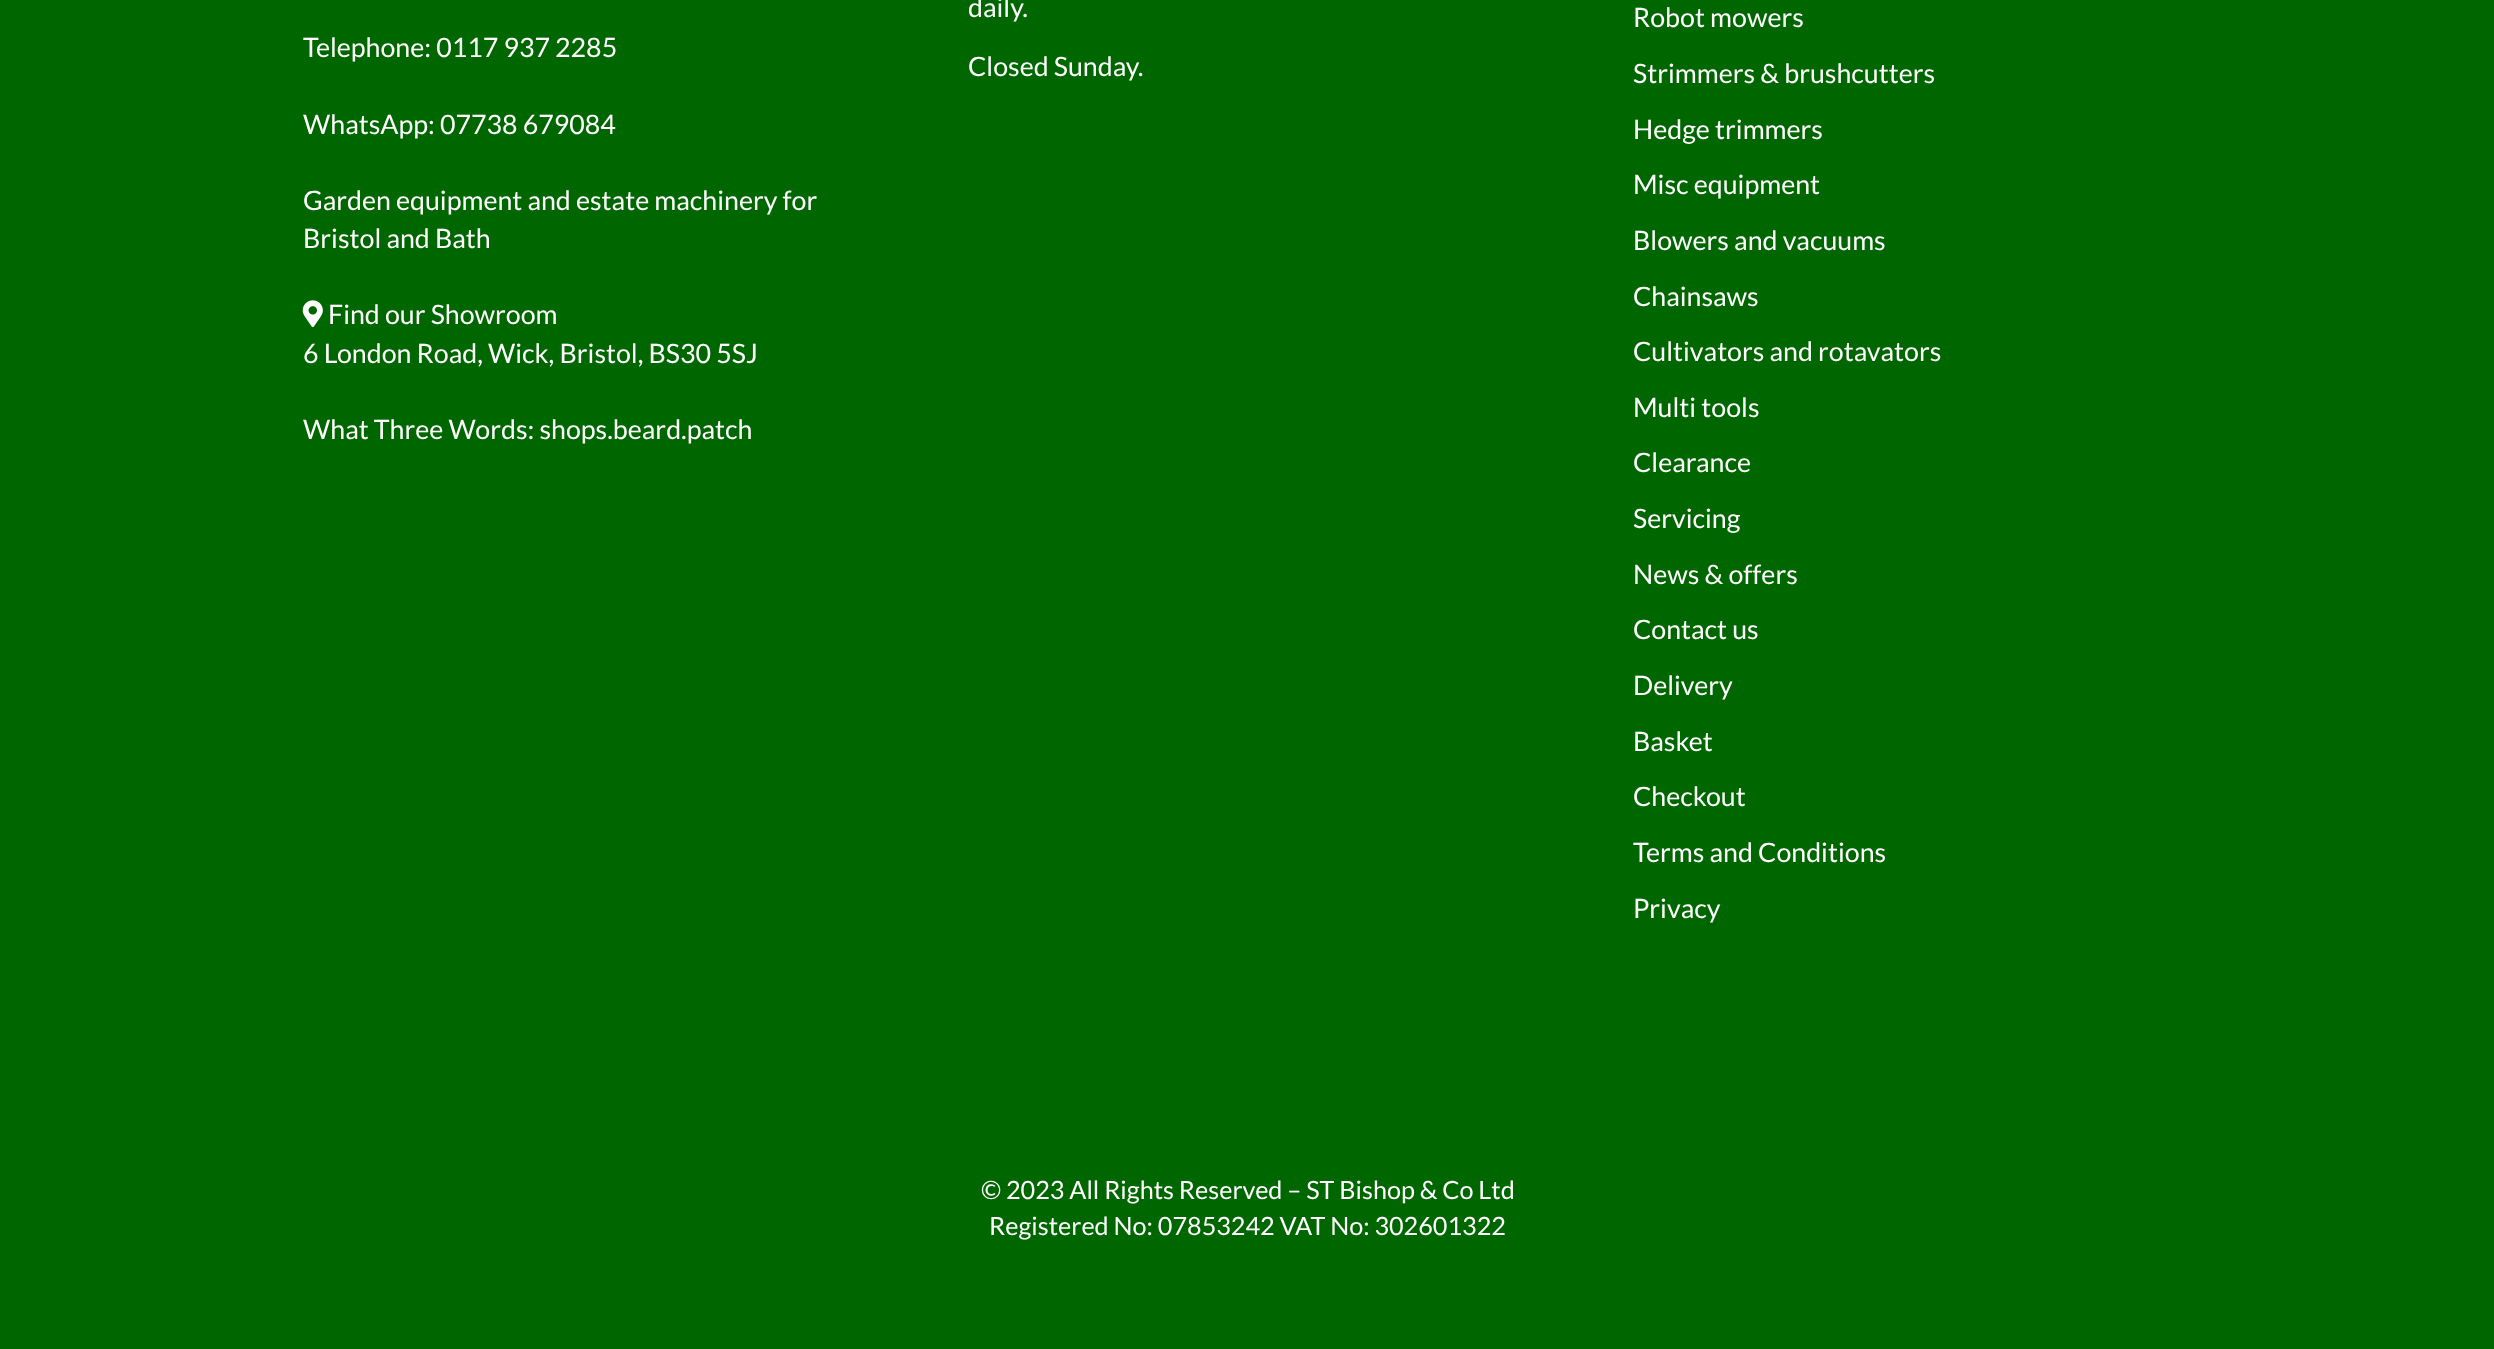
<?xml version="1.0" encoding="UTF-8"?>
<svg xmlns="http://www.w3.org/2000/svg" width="2494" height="1349">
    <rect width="100%" height="100%" fill="#006600"/>
    <text x="303" y="57" font-family="Lato" font-size="26.75" fill="#FFFFFF">Telephone: 0117 937 2285</text>
    <text x="303" y="134" font-family="Lato" font-size="26.75" fill="#FFFFFF">WhatsApp: 07738 679084</text>
    <text font-family="Lato" font-size="26.75" fill="#FFFFFF">
        <tspan x="303" y="210">Garden equipment and estate machinery for</tspan>
        <tspan x="303" y="248">Bristol and Bath</tspan>
    </text>
    <image x="302" y="300" width="21" height="28" href="img_01.png"/>
    <text x="328" y="324" font-family="Lato" font-size="26.75" fill="#FFFFFF">Find our Showroom</text>
    <text x="303" y="363" font-family="Lato" font-size="26.75" fill="#FFFFFF">6 London Road, Wick, Bristol, BS30 5SJ</text>
    <text x="303" y="439" font-family="Lato" font-size="26.75" fill="#FFFFFF">What Three Words: shops.beard.patch</text>
    <text x="968" y="17" font-family="Lato" font-size="26.75" fill="#FFFFFF">daily.</text>
    <text x="968" y="76" font-family="Lato" font-size="26.75" fill="#FFFFFF">Closed Sunday.</text>
    <text x="1633" y="27" font-family="Lato" font-size="26.75" fill="#FFFFFF">Robot mowers</text>
    <text x="1633" y="83" font-family="Lato" font-size="26.75" fill="#FFFFFF">Strimmers &amp; brushcutters</text>
    <text x="1633" y="139" font-family="Lato" font-size="26.75" fill="#FFFFFF">Hedge trimmers</text>
    <text x="1633" y="194" font-family="Lato" font-size="26.75" fill="#FFFFFF">Misc equipment</text>
    <text x="1633" y="250" font-family="Lato" font-size="26.75" fill="#FFFFFF">Blowers and vacuums</text>
    <text x="1633" y="306" font-family="Lato" font-size="26.75" fill="#FFFFFF">Chainsaws</text>
    <text x="1633" y="361" font-family="Lato" font-size="26.75" fill="#FFFFFF">Cultivators and rotavators</text>
    <text x="1633" y="417" font-family="Lato" font-size="26.75" fill="#FFFFFF">Multi tools</text>
    <text x="1633" y="472" font-family="Lato" font-size="26.75" fill="#FFFFFF">Clearance</text>
    <text x="1633" y="528" font-family="Lato" font-size="26.75" fill="#FFFFFF">Servicing</text>
    <text x="1633" y="584" font-family="Lato" font-size="26.75" fill="#FFFFFF">News &amp; offers</text>
    <text x="1633" y="639" font-family="Lato" font-size="26.75" fill="#FFFFFF">Contact us</text>
    <text x="1633" y="695" font-family="Lato" font-size="26.75" fill="#FFFFFF">Delivery</text>
    <text x="1633" y="751" font-family="Lato" font-size="26.75" fill="#FFFFFF">Basket</text>
    <text x="1633" y="806" font-family="Lato" font-size="26.75" fill="#FFFFFF">Checkout</text>
    <text x="1633" y="862" font-family="Lato" font-size="26.75" fill="#FFFFFF">Terms and Conditions</text>
    <text x="1633" y="918" font-family="Lato" font-size="26.75" fill="#FFFFFF">Privacy</text>
    <text x="981" y="1199" font-family="Lato" font-size="25.2" fill="#FFFFFF">© 2023 All Rights Reserved – ST Bishop &amp; Co Ltd</text>
    <text x="989" y="1235" font-family="Lato" font-size="25.2" fill="#FFFFFF">Registered No: 07853242 VAT No: 302601322</text>
</svg>
